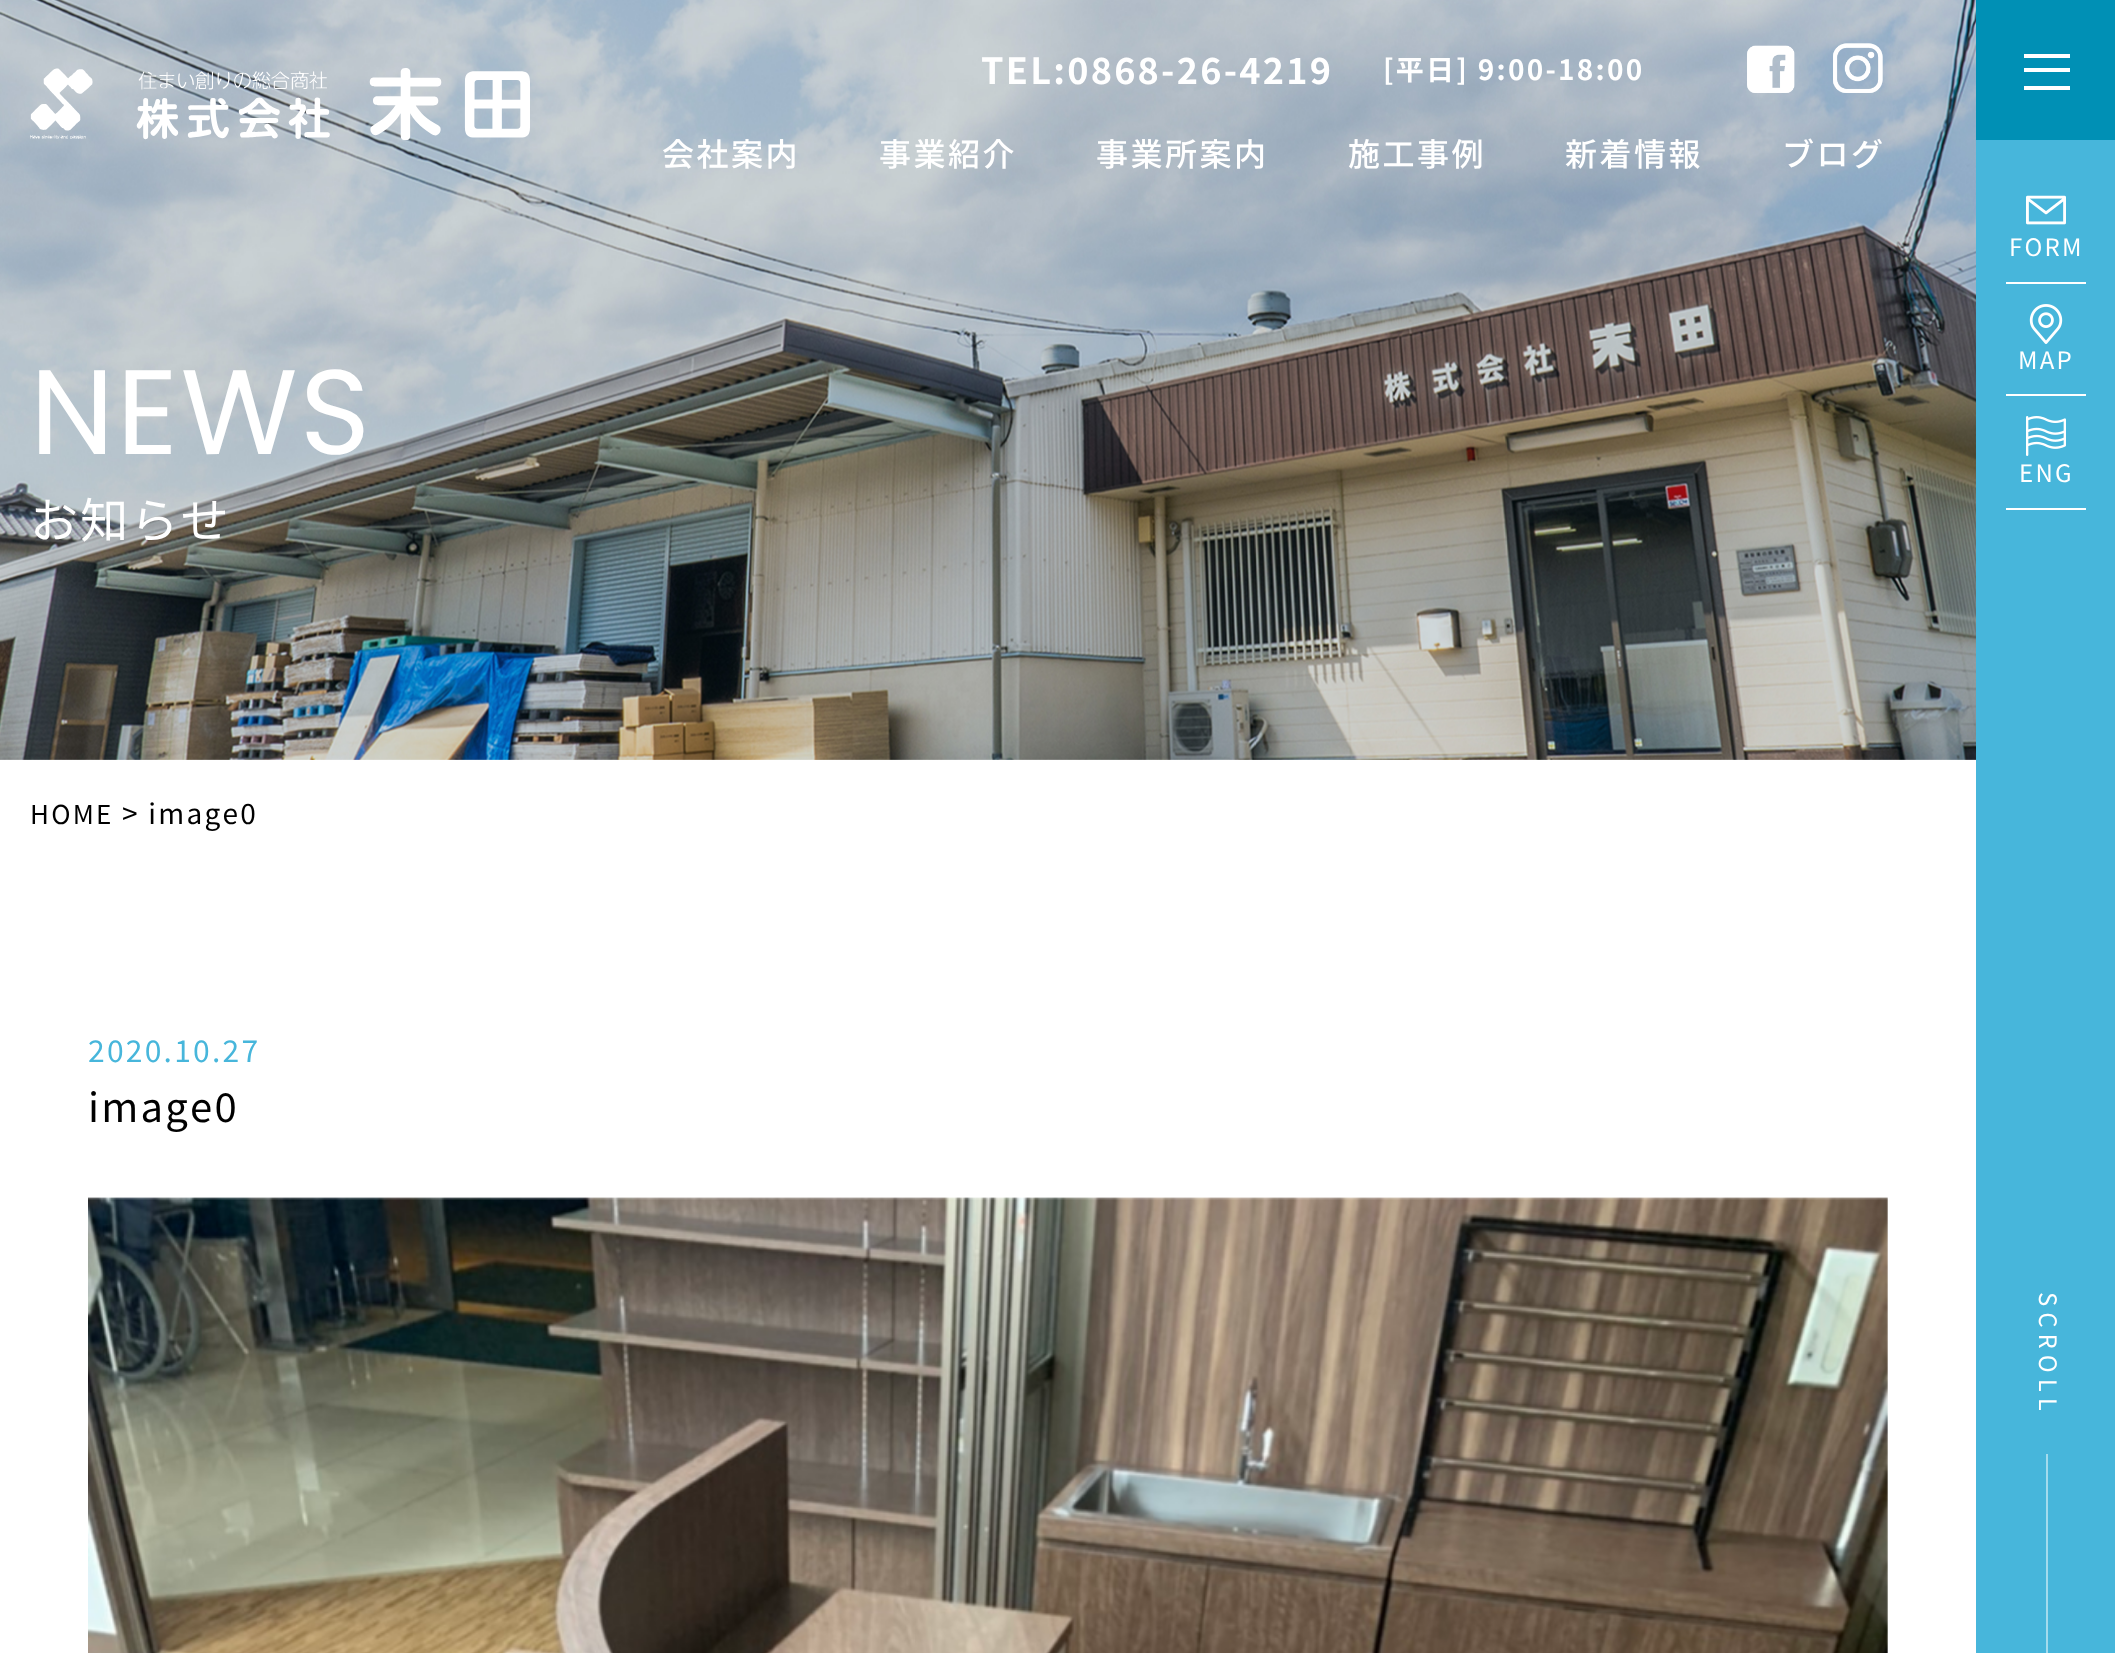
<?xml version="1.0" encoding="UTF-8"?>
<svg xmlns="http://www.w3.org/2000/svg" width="2115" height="1653">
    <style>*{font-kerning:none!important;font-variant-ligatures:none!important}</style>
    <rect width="100%" height="100%" fill="#FFFFFF"/>
    <image x="0" y="0" width="1976" height="760" href="img_01.png"/>
    <text x="30" y="454" font-family="Poppins" font-size="120" letter-spacing="2.25" fill="#FFFFFF">NEWS</text>
    <text x="30" y="538" font-family="Noto Sans JP" font-size="48" letter-spacing="2.25" fill="#FFFFFF">お知らせ</text>
    <rect x="1976" y="0" width="139" height="140" fill="#0090B5"/>
    <rect x="2024" y="68" width="46" height="4" fill="#FFFFFF"/>
    <rect x="2024" y="54" width="46" height="4" fill="#FFFFFF"/>
    <rect x="2024" y="86" width="46" height="4" fill="#FFFFFF"/>
    <image x="30" y="68" width="500" height="72" href="img_02.png"/>
    <text x="981" y="84" font-family="Noto Sans JP" font-size="36" font-weight="700" letter-spacing="2.25" fill="#FFFFFF">TEL:0868-26-4219</text>
    <text x="1383" y="80" font-family="Noto Sans JP" font-size="28" font-weight="700" letter-spacing="2.25" fill="#FFFFFF">[平日] 9:00-18:00</text>
    <image x="1747" y="45" width="48" height="48" href="img_03.png"/>
    <image x="1833" y="43" width="50" height="50" href="img_04.png"/>
    <text x="662" y="166" font-family="Noto Sans JP" font-size="32" font-weight="500" letter-spacing="2.5" fill="#FFFFFF">会社案内</text>
    <text x="879" y="166" font-family="Noto Sans JP" font-size="32" font-weight="500" letter-spacing="2.5" fill="#FFFFFF">事業紹介</text>
    <text x="1096" y="166" font-family="Noto Sans JP" font-size="32" font-weight="500" letter-spacing="2.5" fill="#FFFFFF">事業所案内</text>
    <text x="1348" y="166" font-family="Noto Sans JP" font-size="32" font-weight="500" letter-spacing="2.5" fill="#FFFFFF">施工事例</text>
    <text x="1565" y="166" font-family="Noto Sans JP" font-size="32" font-weight="500" letter-spacing="2.5" fill="#FFFFFF">新着情報</text>
    <text x="1782" y="166" font-family="Noto Sans JP" font-size="32" font-weight="500" letter-spacing="2.5" fill="#FFFFFF">ブログ</text>
    <rect x="1976" y="140" width="139" height="1513" fill="#47B6DB"/>
    <rect x="2006" y="282" width="80" height="2" fill="#FFFFFF"/>
    <image x="2026" y="195" width="40" height="30" href="img_05.png"/>
    <text x="2009" y="256" font-family="Noto Sans JP" font-size="24" letter-spacing="2.25" fill="#FFFFFF">FORM</text>
    <rect x="2006" y="394" width="80" height="2" fill="#FFFFFF"/>
    <image x="2029" y="304" width="34" height="40" href="img_06.png"/>
    <text x="2018" y="369" font-family="Noto Sans JP" font-size="24" letter-spacing="2.25" fill="#FFFFFF">MAP</text>
    <rect x="2006" y="508" width="80" height="2" fill="#FFFFFF"/>
    <image x="2026" y="416" width="40" height="40" href="img_07.png"/>
    <text x="2019" y="482" font-family="Noto Sans JP" font-size="24" letter-spacing="2.25" fill="#FFFFFF">ENG</text>
    <text x="2039" y="1292" transform="rotate(90 2039 1292)" font-family="Noto Sans JP" font-size="24" letter-spacing="6" fill="#FFFFFF">SCROLL</text>
    <rect x="2046" y="1454" width="2" height="199" fill="#A3DBED"/>
    <text x="30" y="824" font-family="Noto Sans JP" font-size="26" letter-spacing="2.25" fill="#000000">HOME</text>
    <text x="122" y="824" font-family="Noto Sans JP" font-size="28" letter-spacing="2.25" fill="#000000">&gt; image0</text>
    <text x="88" y="1062" font-family="Noto Sans JP" font-size="30" letter-spacing="2.25" fill="#47B6DB">2020.10.27</text>
    <text x="88" y="1122" font-family="Noto Sans JP" font-size="40" letter-spacing="2.25" fill="#000000">image0</text>
    <image x="88" y="1197" width="1800" height="456" href="img_08.png"/>
</svg>
